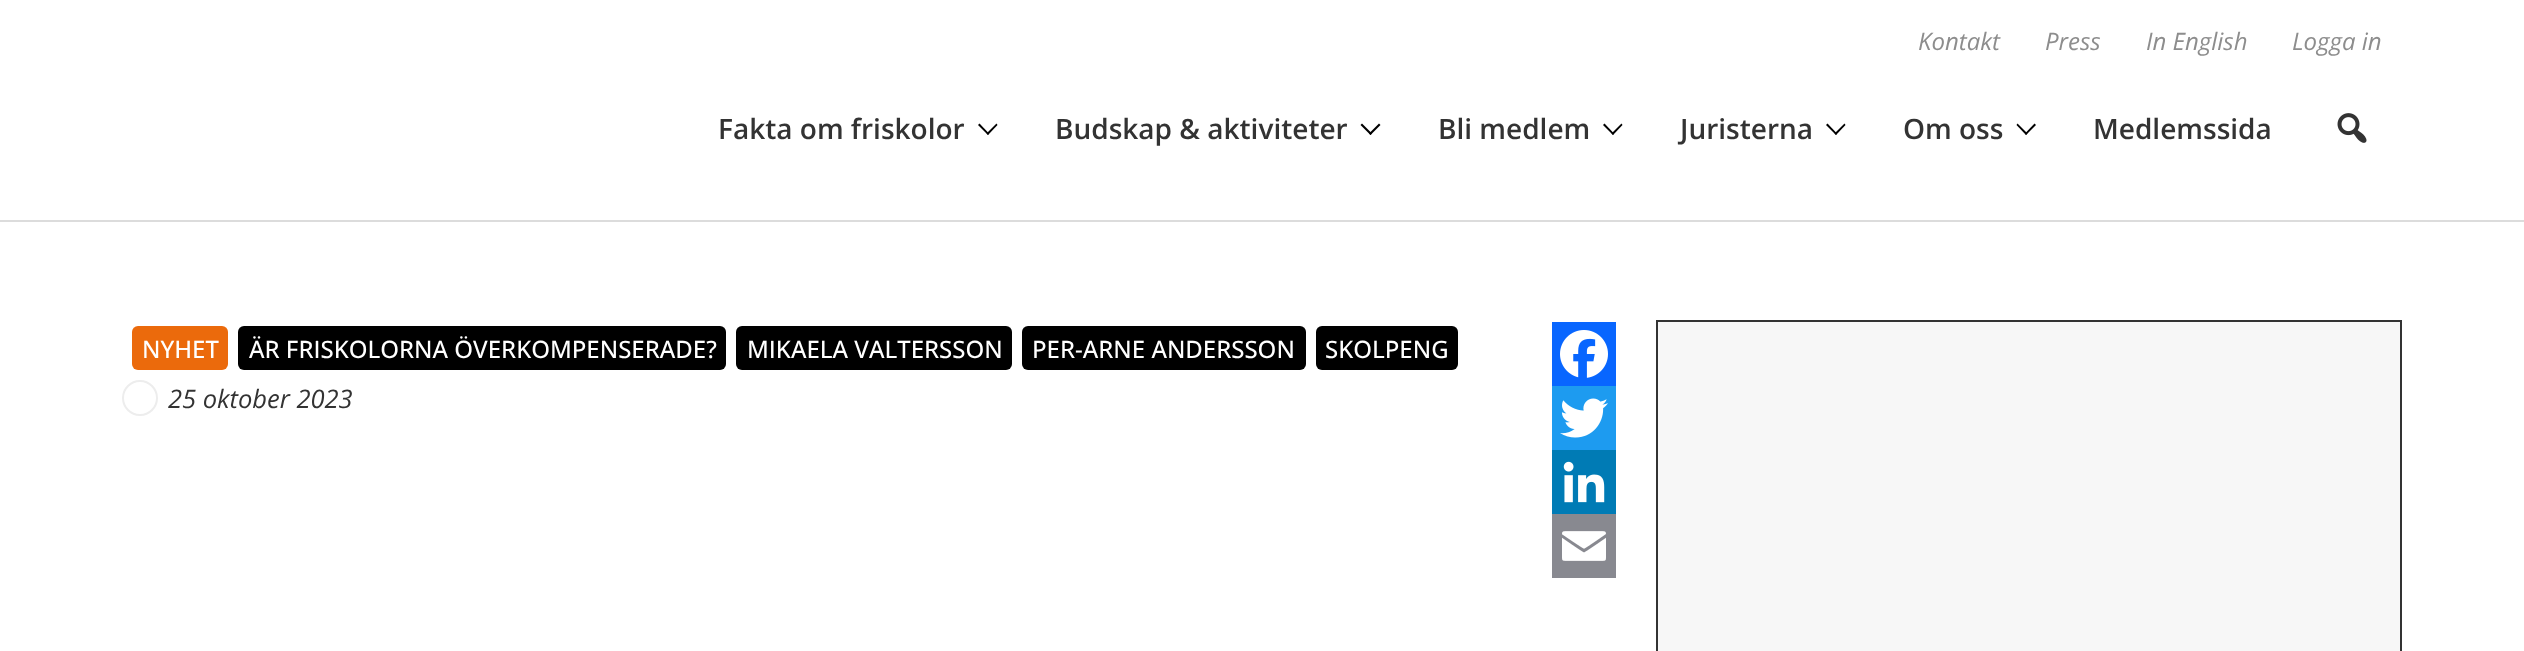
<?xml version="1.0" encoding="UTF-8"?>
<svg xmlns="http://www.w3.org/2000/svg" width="2524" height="651">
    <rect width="100%" height="100%" fill="#FFFFFF"/>
    <rect x="0" y="220" width="2524" height="2" fill="#DCDCDC"/>
    <text x="1918" y="50" font-family="Open Sans" font-size="24" font-style="italic" fill="#8D8D8D">Kontakt</text>
    <text x="2045" y="50" font-family="Open Sans" font-size="24" font-style="italic" fill="#8D8D8D">Press</text>
    <text x="2146" y="50" font-family="Open Sans" font-size="24" font-style="italic" fill="#8D8D8D">In English</text>
    <text x="2292" y="50" font-family="Open Sans" font-size="24" font-style="italic" fill="#8D8D8D">Logga in</text>
    <text x="718" y="139" font-family="Open Sans" font-size="28" font-weight="600" fill="#333333">Fakta om friskolor</text>
    <path d="M 996.5 123.5 L 997.5 125 L 988 135 L 986.5 133.5 Z" fill="#000000"/>
    <path d="M 979.5 123.5 L 989 133.5 L 988 135 L 978 125 Z" fill="#000000"/>
    <text x="1055" y="139" font-family="Open Sans" font-size="28" font-weight="600" fill="#333333">Budskap &amp; aktiviteter</text>
    <path d="M 1379 123.5 L 1380.5 125 L 1370.5 135 L 1369 133.5 Z" fill="#000000"/>
    <path d="M 1362 123.5 L 1372 133.5 L 1370.5 135 L 1360.5 125 Z" fill="#000000"/>
    <text x="1438" y="139" font-family="Open Sans" font-size="28" font-weight="600" fill="#333333">Bli medlem</text>
    <path d="M 1621.5 123.5 L 1622.5 125 L 1613 135 L 1611.5 133.5 Z" fill="#000000"/>
    <path d="M 1604.5 123.5 L 1614 133.5 L 1613 135 L 1603 125 Z" fill="#000000"/>
    <text x="1680" y="139" font-family="Open Sans" font-size="28" font-weight="600" fill="#333333">Juristerna</text>
    <path d="M 1844.5 123.5 L 1845.5 125 L 1836 135 L 1834.5 133.5 Z" fill="#000000"/>
    <path d="M 1827.5 123.5 L 1837 133.5 L 1836 135 L 1826 125 Z" fill="#000000"/>
    <text x="1903" y="139" font-family="Open Sans" font-size="28" font-weight="600" fill="#333333">Om oss</text>
    <path d="M 2034.5 123.5 L 2036 125 L 2026 135 L 2025 133.5 Z" fill="#000000"/>
    <path d="M 2017.5 123.5 L 2027.5 133.5 L 2026 135 L 2016.5 125 Z" fill="#000000"/>
    <text x="2093" y="139" font-family="Open Sans" font-size="28" font-weight="600" fill="#333333">Medlemssida</text>
    <image x="2337" y="113" width="30" height="30" href="img_01.png"/>
    <rect x="132" y="326" width="96" height="44" rx="6" fill="#EB6A0C"/>
    <text x="142" y="358" font-family="Open Sans" font-size="24" font-weight="500" fill="#FFFFFF">NYHET</text>
    <rect x="238" y="326" width="488" height="44" rx="6" fill="#000000"/>
    <text x="249" y="358" font-family="Open Sans" font-size="24" font-weight="500" fill="#FFFFFF">ÄR FRISKOLORNA ÖVERKOMPENSERADE?</text>
    <rect x="736" y="326" width="276" height="44" rx="6" fill="#000000"/>
    <text x="747" y="358" font-family="Open Sans" font-size="24" font-weight="500" fill="#FFFFFF">MIKAELA VALTERSSON</text>
    <rect x="1022" y="326" width="284" height="44" rx="6" fill="#000000"/>
    <text x="1032" y="358" font-family="Open Sans" font-size="24" font-weight="500" fill="#FFFFFF">PER-ARNE ANDERSSON</text>
    <rect x="1316" y="326" width="142" height="44" rx="6" fill="#000000"/>
    <text x="1325" y="358" font-family="Open Sans" font-size="24" font-weight="500" fill="#FFFFFF">SKOLPENG</text>
    <circle cx="140" cy="398" r="17" fill="none" stroke="#EDEDED" stroke-width="2"/>
    <text x="168" y="408" font-family="Open Sans" font-size="25.5" font-style="italic" fill="#333333">25 oktober 2023</text>
    <rect x="1552" y="322" width="64" height="64" fill="#0866FF"/>
    <image x="1560" y="330" width="48" height="48" href="img_02.png"/>
    <rect x="1552" y="386" width="64" height="64" fill="#1D9BF0"/>
    <image x="1560" y="398" width="48" height="40" href="img_03.png"/>
    <rect x="1552" y="450" width="64" height="64" fill="#007BB5"/>
    <image x="1563" y="461" width="42" height="42" href="img_04.png"/>
    <rect x="1552" y="514" width="64" height="64" fill="#888990"/>
    <image x="1562" y="531" width="44" height="30" href="img_05.png"/>
    <rect x="1657" y="321" width="744" height="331" fill="#F7F7F7" stroke="#333333" stroke-width="2"/>
</svg>
